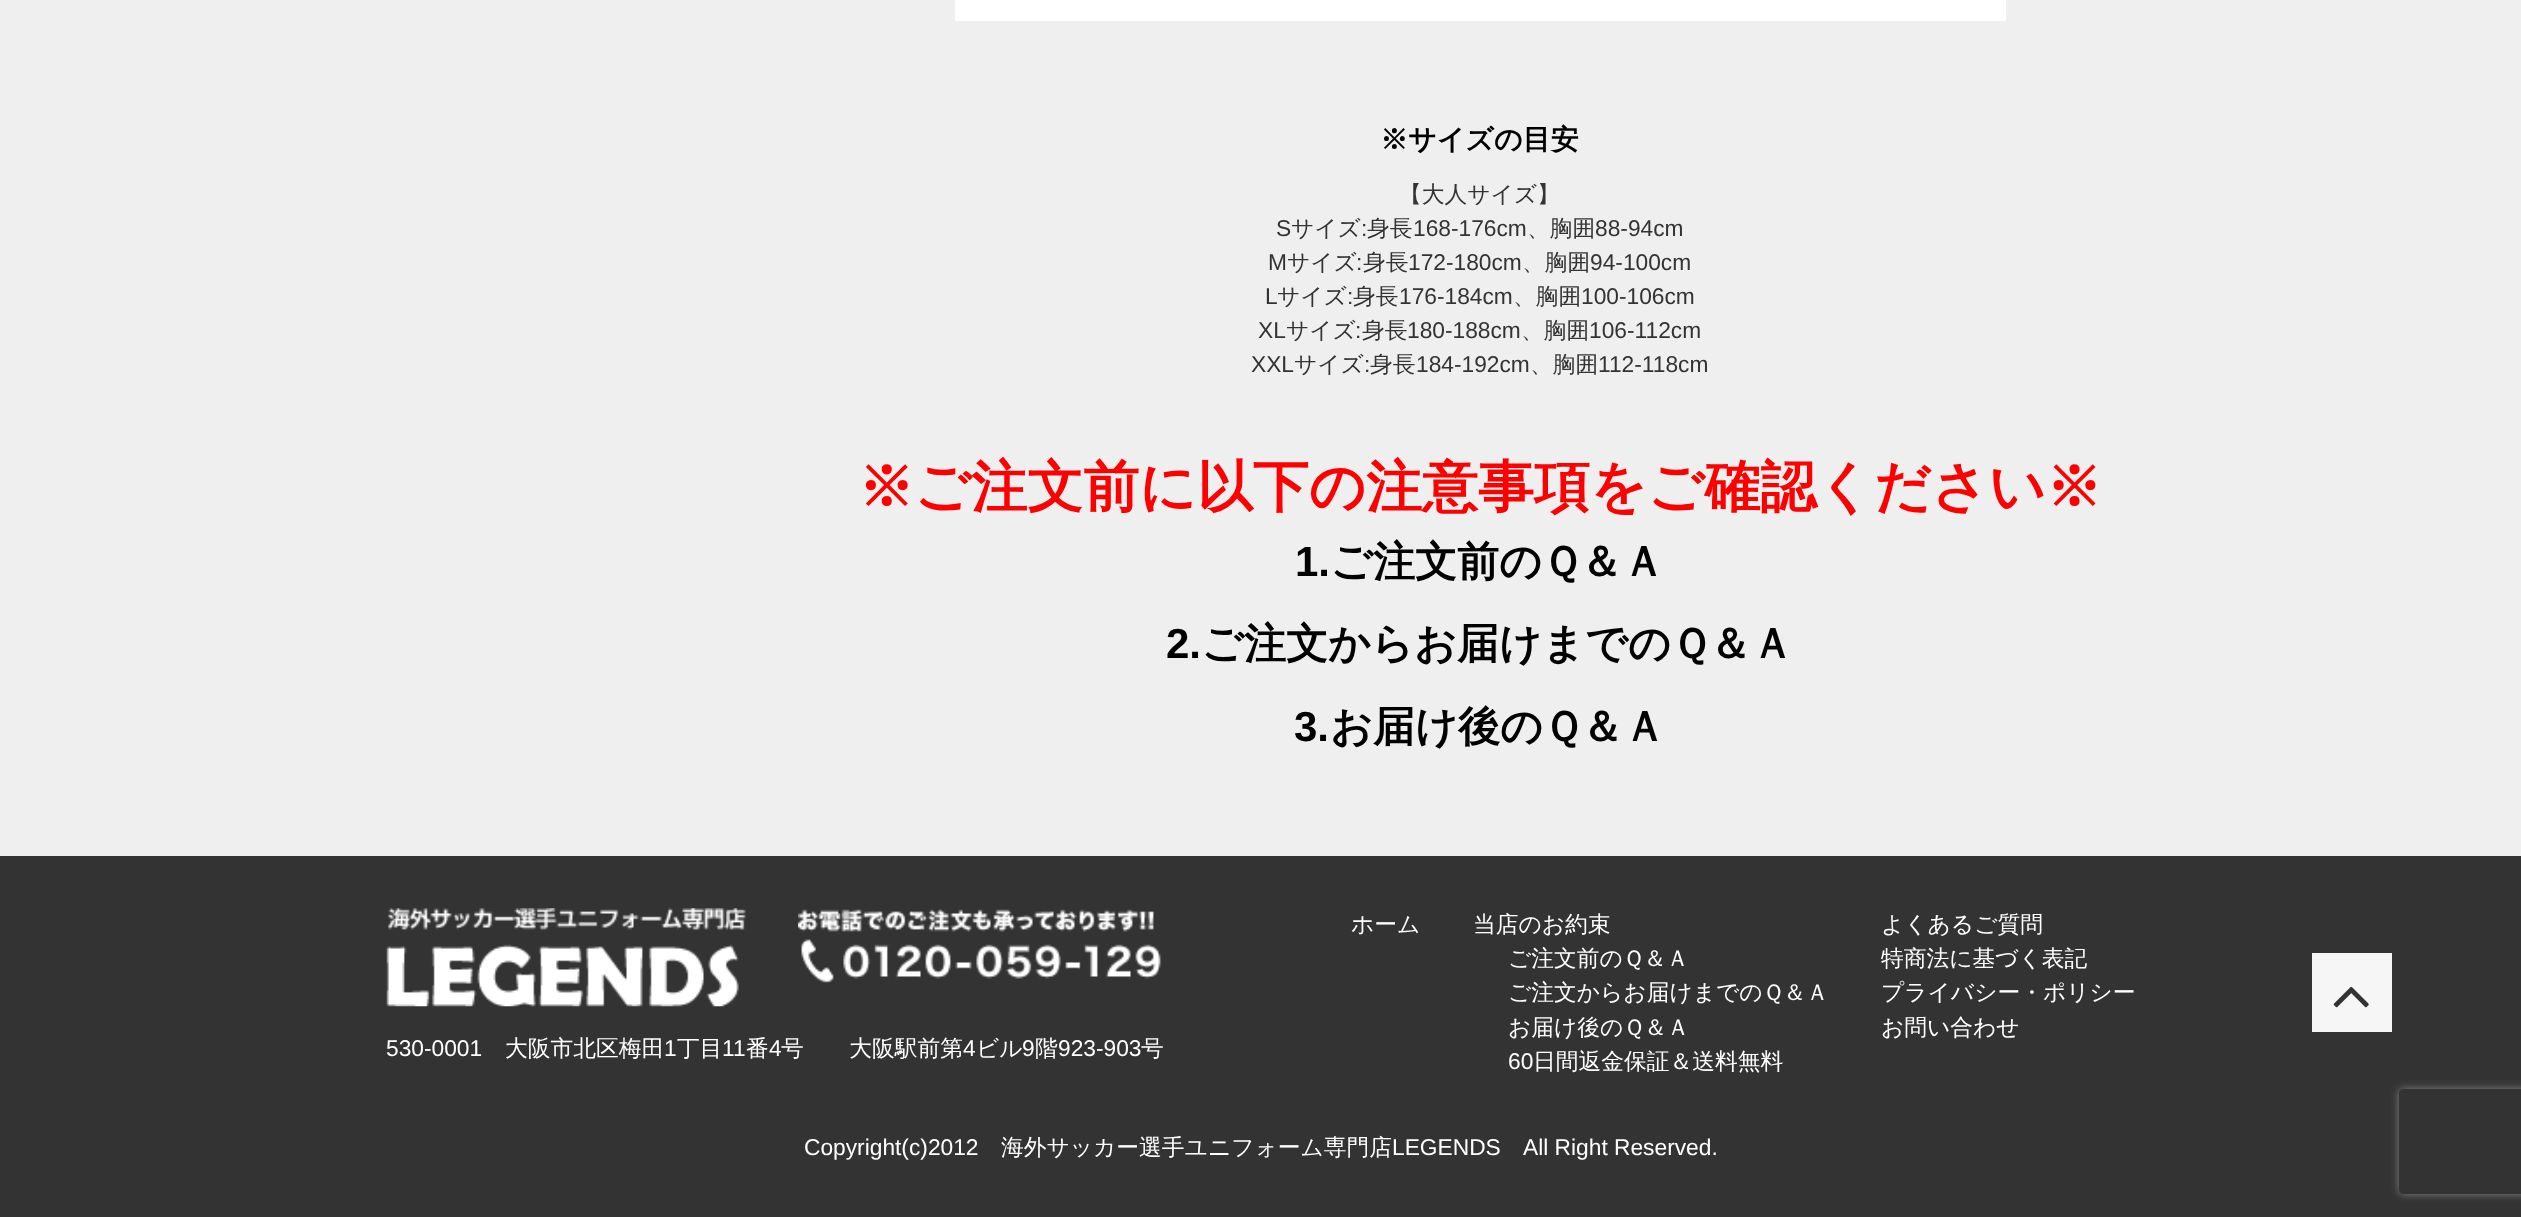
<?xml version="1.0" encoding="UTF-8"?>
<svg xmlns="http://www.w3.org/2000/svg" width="2521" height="1217">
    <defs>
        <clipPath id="clip1"><path d="M 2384 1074 H 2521 V 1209 H 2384 Z M 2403 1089 H 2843 C 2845 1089 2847 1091 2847 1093 V 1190 C 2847 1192 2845 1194 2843 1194 H 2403 C 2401 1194 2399 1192 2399 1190 V 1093 C 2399 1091 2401 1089 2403 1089 Z" clip-rule="evenodd"/></clipPath>
        <filter id="blur1" x="-50%" y="-200%" width="200%" height="500%"><feGaussianBlur stdDeviation="4.5"/></filter>
    </defs>
    <rect width="100%" height="100%" fill="#EFEFEF"/>
    <rect x="955" y="0" width="1051" height="21" fill="#FFFFFF"/>
    <text x="1380" y="149" font-family="WenQuanYi Zen Hei" font-size="28" font-weight="700" fill="#000000">※サイズの目安</text>
    <text x="1399" y="202" font-family="WenQuanYi Zen Hei" font-size="22.75" font-weight="500" fill="#333333">【大人サイズ】</text>
    <text x="1276" y="236" font-family="Liberation Sans" font-size="22.75" fill="#333333">S</text>
    <text x="1291" y="236" font-family="WenQuanYi Zen Hei" font-size="22.75" font-weight="500" fill="#333333">サイズ</text>
    <text x="1361" y="236" font-family="Liberation Sans" font-size="22.75" fill="#333333">:</text>
    <text x="1367" y="236" font-family="WenQuanYi Zen Hei" font-size="22.75" font-weight="500" fill="#333333">身長</text>
    <text x="1413" y="236" font-family="Liberation Sans" font-size="22.75" fill="#333333">168-176cm</text>
    <text x="1527" y="236" font-family="WenQuanYi Zen Hei" font-size="22.75" font-weight="500" fill="#333333">、胸囲</text>
    <text x="1595" y="236" font-family="Liberation Sans" font-size="22.75" fill="#333333">88-94cm</text>
    <text x="1268" y="270" font-family="Liberation Sans" font-size="22.75" fill="#333333">M</text>
    <text x="1287" y="270" font-family="WenQuanYi Zen Hei" font-size="22.75" font-weight="500" fill="#333333">サイズ</text>
    <text x="1356" y="270" font-family="Liberation Sans" font-size="22.75" fill="#333333">:</text>
    <text x="1363" y="270" font-family="WenQuanYi Zen Hei" font-size="22.75" font-weight="500" fill="#333333">身長</text>
    <text x="1408" y="270" font-family="Liberation Sans" font-size="22.75" fill="#333333">172-180cm</text>
    <text x="1522" y="270" font-family="WenQuanYi Zen Hei" font-size="22.75" font-weight="500" fill="#333333">、胸囲</text>
    <text x="1590" y="270" font-family="Liberation Sans" font-size="22.75" fill="#333333">94-100cm</text>
    <text x="1265" y="304" font-family="Liberation Sans" font-size="22.75" fill="#333333">L</text>
    <text x="1277" y="304" font-family="WenQuanYi Zen Hei" font-size="22.75" font-weight="500" fill="#333333">サイズ</text>
    <text x="1347" y="304" font-family="Liberation Sans" font-size="22.75" fill="#333333">:</text>
    <text x="1353" y="304" font-family="WenQuanYi Zen Hei" font-size="22.75" font-weight="500" fill="#333333">身長</text>
    <text x="1399" y="304" font-family="Liberation Sans" font-size="22.75" fill="#333333">176-184cm</text>
    <text x="1513" y="304" font-family="WenQuanYi Zen Hei" font-size="22.75" font-weight="500" fill="#333333">、胸囲</text>
    <text x="1581" y="304" font-family="Liberation Sans" font-size="22.75" fill="#333333">100-106cm</text>
    <text x="1258" y="338" font-family="Liberation Sans" font-size="22.75" fill="#333333">XL</text>
    <text x="1286" y="338" font-family="WenQuanYi Zen Hei" font-size="22.75" font-weight="500" fill="#333333">サイズ</text>
    <text x="1355" y="338" font-family="Liberation Sans" font-size="22.75" fill="#333333">:</text>
    <text x="1362" y="338" font-family="WenQuanYi Zen Hei" font-size="22.75" font-weight="500" fill="#333333">身長</text>
    <text x="1407" y="338" font-family="Liberation Sans" font-size="22.75" fill="#333333">180-188cm</text>
    <text x="1521" y="338" font-family="WenQuanYi Zen Hei" font-size="22.75" font-weight="500" fill="#333333">、胸囲</text>
    <text x="1589" y="338" font-family="Liberation Sans" font-size="22.75" fill="#333333">106-112cm</text>
    <text x="1251" y="372" font-family="Liberation Sans" font-size="22.75" fill="#333333">XXL</text>
    <text x="1294" y="372" font-family="WenQuanYi Zen Hei" font-size="22.75" font-weight="500" fill="#333333">サイズ</text>
    <text x="1364" y="372" font-family="Liberation Sans" font-size="22.75" fill="#333333">:</text>
    <text x="1370" y="372" font-family="WenQuanYi Zen Hei" font-size="22.75" font-weight="500" fill="#333333">身長</text>
    <text x="1416" y="372" font-family="Liberation Sans" font-size="22.75" fill="#333333">184-192cm</text>
    <text x="1530" y="372" font-family="WenQuanYi Zen Hei" font-size="22.75" font-weight="500" fill="#333333">、胸囲</text>
    <text x="1598" y="372" font-family="Liberation Sans" font-size="22.75" fill="#333333">112-118cm</text>
    <text x="858" y="506" font-family="WenQuanYi Zen Hei" font-size="56" font-weight="700" fill="#FF0000">※ご注文前に以下の注意事項をご確認ください※</text>
    <text x="1295" y="576" font-family="Liberation Sans" font-size="42" font-weight="700" fill="#000000">1.</text>
    <text x="1330" y="576" font-family="WenQuanYi Zen Hei" font-size="42" font-weight="700" fill="#000000">ご注文前のＱ＆Ａ</text>
    <text x="1166" y="658" font-family="Liberation Sans" font-size="42" font-weight="700" fill="#000000">2.</text>
    <text x="1201" y="658" font-family="WenQuanYi Zen Hei" font-size="42" font-weight="700" fill="#000000">ご注文からお届けまでのＱ＆Ａ</text>
    <text x="1294" y="741" font-family="Liberation Sans" font-size="42" font-weight="700" fill="#000000">3.</text>
    <text x="1330" y="741" font-family="WenQuanYi Zen Hei" font-size="42" font-weight="700" fill="#000000">お届け後のＱ＆Ａ</text>
    <rect x="0" y="856" width="2521" height="361" fill="#333333"/>
    <image x="386" y="908" width="360" height="99" href="img_01.png"/>
    <image x="798" y="909" width="363" height="74" href="img_02.png"/>
    <text x="386" y="1056" font-family="Liberation Sans" font-size="22.75" fill="#FFFFFF">530-0001</text>
    <text x="505" y="1056" font-family="WenQuanYi Zen Hei" font-size="22.75" font-weight="500" fill="#FFFFFF">大阪市北区梅田</text>
    <text x="664" y="1056" font-family="Liberation Sans" font-size="22.75" fill="#FFFFFF">1</text>
    <text x="677" y="1056" font-family="WenQuanYi Zen Hei" font-size="22.75" font-weight="500" fill="#FFFFFF">丁目</text>
    <text x="722" y="1056" font-family="Liberation Sans" font-size="22.75" fill="#FFFFFF">11</text>
    <text x="746" y="1056" font-family="WenQuanYi Zen Hei" font-size="22.75" font-weight="500" fill="#FFFFFF">番</text>
    <text x="769" y="1056" font-family="Liberation Sans" font-size="22.75" fill="#FFFFFF">4</text>
    <text x="781" y="1056" font-family="WenQuanYi Zen Hei" font-size="22.75" font-weight="500" fill="#FFFFFF">号　　大阪駅前第</text>
    <text x="963" y="1056" font-family="Liberation Sans" font-size="22.75" fill="#FFFFFF">4</text>
    <text x="976" y="1056" font-family="WenQuanYi Zen Hei" font-size="22.75" font-weight="500" fill="#FFFFFF">ビル</text>
    <text x="1022" y="1056" font-family="Liberation Sans" font-size="22.75" fill="#FFFFFF">9</text>
    <text x="1035" y="1056" font-family="WenQuanYi Zen Hei" font-size="22.75" font-weight="500" fill="#FFFFFF">階</text>
    <text x="1058" y="1056" font-family="Liberation Sans" font-size="22.75" fill="#FFFFFF">923-903</text>
    <text x="1141" y="1056" font-family="WenQuanYi Zen Hei" font-size="22.75" font-weight="500" fill="#FFFFFF">号</text>
    <text x="1351" y="932" font-family="WenQuanYi Zen Hei" font-size="22.75" font-weight="500" fill="#FFFFFF">ホーム</text>
    <text x="1473" y="932" font-family="WenQuanYi Zen Hei" font-size="22.75" font-weight="500" fill="#FFFFFF">当店のお約束</text>
    <text font-family="WenQuanYi Zen Hei" font-size="22.75" font-weight="500" fill="#FFFFFF">
        <tspan x="1508" y="966">ご注文前のＱ＆Ａ</tspan>
        <tspan x="1508" y="1000">ご注文からお届けまでのＱ＆Ａ</tspan>
        <tspan x="1508" y="1035">お届け後のＱ＆Ａ</tspan>
    </text>
    <text x="1508" y="1069" font-family="Liberation Sans" font-size="22.75" fill="#FFFFFF">60</text>
    <text x="1533" y="1069" font-family="WenQuanYi Zen Hei" font-size="22.75" font-weight="500" fill="#FFFFFF">日間返金保証＆送料無料</text>
    <text font-family="WenQuanYi Zen Hei" font-size="22.75" font-weight="500" fill="#FFFFFF">
        <tspan x="1881" y="932">よくあるご質問</tspan>
        <tspan x="1881" y="966">特商法に基づく表記</tspan>
        <tspan x="1881" y="1000">プライバシー・ポリシー</tspan>
        <tspan x="1881" y="1035">お問い合わせ</tspan>
    </text>
    <text x="804" y="1155" font-family="Liberation Sans" font-size="22.75" fill="#FFFFFF">Copyright(c)2012</text>
    <text x="1001" y="1155" font-family="WenQuanYi Zen Hei" font-size="22.75" font-weight="500" fill="#FFFFFF">海外サッカー選手ユニフォーム専門店</text>
    <text x="1392" y="1155" font-family="Liberation Sans" font-size="22.75" fill="#FFFFFF">LEGENDS</text>
    <text x="1523" y="1155" font-family="Liberation Sans" font-size="22.75" fill="#FFFFFF">All Right Reserved.</text>
    <rect x="2312" y="953" width="80" height="79" fill="#F6F6F6"/>
    <image x="2333" y="986" width="36" height="22" href="img_03.png"/>
    <g clip-path="url(#clip1)">
        <rect x="2399" y="1089" width="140" height="105" rx="4" fill="#808080" filter="url(#blur1)"/>
    </g>
</svg>
